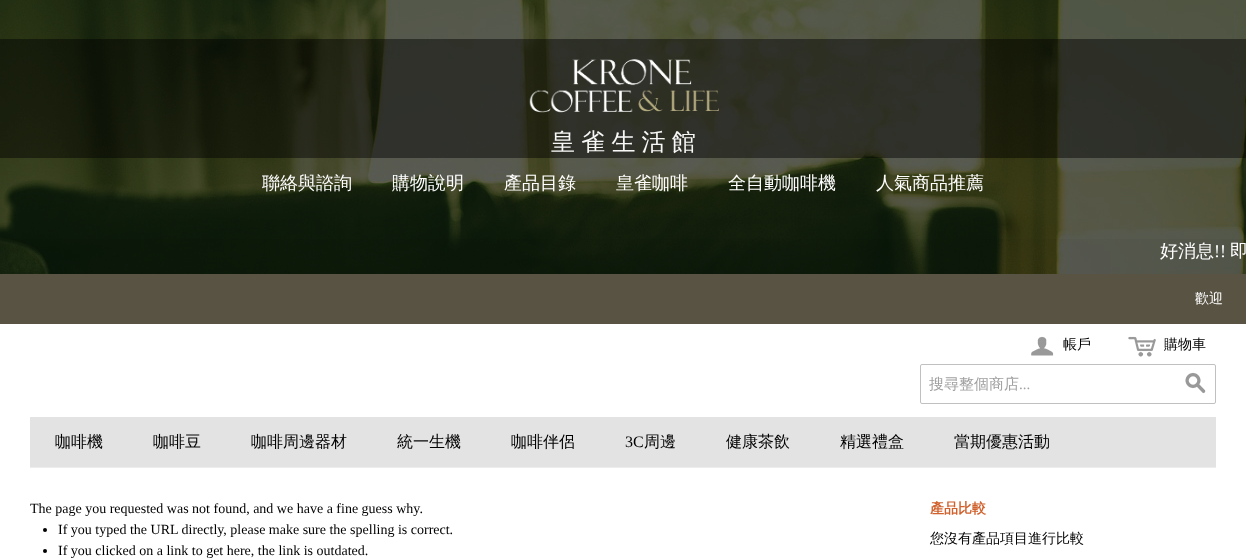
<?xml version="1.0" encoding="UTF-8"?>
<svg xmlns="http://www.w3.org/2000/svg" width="1246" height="558">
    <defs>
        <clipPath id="clip1"><rect x="929" y="375" width="242" height="19"/></clipPath>
    </defs>
    <rect width="100%" height="100%" fill="#FFFFFF"/>
    <image x="0" y="0" width="1246" height="274" href="img_01.png"/>
    <rect x="0" y="0" width="1246" height="239" fill="#000000" fill-opacity="0.63"/>
    <rect x="0" y="39" width="1246" height="87" fill="#000000" fill-opacity="0.45"/>
    <image x="529" y="59" width="190" height="54" href="img_02.png"/>
    <rect x="0" y="126" width="1246" height="32" fill="#000000" fill-opacity="0.45"/>
    <text x="551" y="150" word-spacing="-1" font-family="WenQuanYi Zen Hei" font-size="24" font-weight="500" fill="#F8F8F8">皇 雀 生 活 館</text>
    <text x="262" y="189" font-family="WenQuanYi Zen Hei" font-size="18" font-weight="500" fill="#FFFFFF">聯絡與諮詢</text>
    <text x="392" y="189" font-family="WenQuanYi Zen Hei" font-size="18" font-weight="500" fill="#FFFFFF">購物說明</text>
    <text x="504" y="189" font-family="WenQuanYi Zen Hei" font-size="18" font-weight="500" fill="#FFFFFF">產品目錄</text>
    <text x="616" y="189" font-family="WenQuanYi Zen Hei" font-size="18" font-weight="500" fill="#FFFFFF">皇雀咖啡</text>
    <text x="728" y="189" font-family="WenQuanYi Zen Hei" font-size="18" font-weight="500" fill="#FFFFFF">全自動咖啡機</text>
    <text x="876" y="189" font-family="WenQuanYi Zen Hei" font-size="18" font-weight="500" fill="#FFFFFF">人氣商品推薦</text>
    <rect x="0" y="239" width="1246" height="35" fill="#000000" fill-opacity="0.35"/>
    <rect x="0" y="239" width="1246" height="35" fill="#000000" fill-opacity="0.45"/>
    <text x="1160" y="257" font-family="WenQuanYi Zen Hei" font-size="18" font-weight="500" fill="#FFFFFF">好消息</text>
    <text x="1214" y="257" font-family="Liberation Serif" font-size="18" fill="#FFFFFF">!!</text>
    <text x="1230" y="257" font-family="WenQuanYi Zen Hei" font-size="18" font-weight="500" fill="#FFFFFF">即</text>
    <rect x="0" y="274" width="1246" height="50" fill="#595343"/>
    <text x="1195" y="303" font-family="WenQuanYi Zen Hei" font-size="14" font-weight="500" fill="#FFFFFF">歡迎</text>
    <image x="1031" y="336" width="23" height="20" href="img_03.png"/>
    <text x="1063" y="349" font-family="WenQuanYi Zen Hei" font-size="14" font-weight="500" fill="#000000">帳戶</text>
    <image x="1128" y="336" width="28" height="21" href="img_04.png"/>
    <text x="1164" y="349" font-family="WenQuanYi Zen Hei" font-size="14" font-weight="500" fill="#000000">購物車</text>
    <rect x="920.5" y="364.5" width="295" height="39" rx="1.5" fill="none" stroke="#C0C0C0"/>
    <g clip-path="url(#clip1)">
        <text x="929" y="389" font-family="WenQuanYi Zen Hei" font-size="15" font-weight="500" fill="#A0A0A0">搜尋整個商店</text>
    </g>
    <text x="1019" y="389" font-family="Liberation Serif" font-size="15" fill="#A0A0A0">...</text>
    <image x="1185" y="372" width="21" height="22" href="img_05.png"/>
    <rect x="30" y="417" width="1186" height="50" fill="#E3E3E3"/>
    <rect x="30" y="467" width="1186" height="1" fill="#EDEDED"/>
    <text x="55" y="447" font-family="WenQuanYi Zen Hei" font-size="16" font-weight="500" fill="#000000">咖啡機</text>
    <text x="153" y="447" font-family="WenQuanYi Zen Hei" font-size="16" font-weight="500" fill="#000000">咖啡豆</text>
    <text x="251" y="447" font-family="WenQuanYi Zen Hei" font-size="16" font-weight="500" fill="#000000">咖啡周邊器材</text>
    <text x="397" y="447" font-family="WenQuanYi Zen Hei" font-size="16" font-weight="500" fill="#000000">統一生機</text>
    <text x="511" y="447" font-family="WenQuanYi Zen Hei" font-size="16" font-weight="500" fill="#000000">咖啡伴侶</text>
    <text x="625" y="447" font-family="Liberation Serif" font-size="16" fill="#000000">3C</text>
    <text x="644" y="447" font-family="WenQuanYi Zen Hei" font-size="16" font-weight="500" fill="#000000">周邊</text>
    <text x="726" y="447" font-family="WenQuanYi Zen Hei" font-size="16" font-weight="500" fill="#000000">健康茶飲</text>
    <text x="840" y="447" font-family="WenQuanYi Zen Hei" font-size="16" font-weight="500" fill="#000000">精選禮盒</text>
    <text x="954" y="447" font-family="WenQuanYi Zen Hei" font-size="16" font-weight="500" fill="#000000">當期優惠活動</text>
    <text x="30" y="513" font-family="Liberation Serif" font-size="14" fill="#000000">The page you requested was not found, and we have a fine guess why.</text>
    <circle cx="45" cy="530" r="2" fill="#000000"/>
    <text x="58" y="534" font-family="Liberation Serif" font-size="14" fill="#000000">If you typed the URL directly, please make sure the spelling is correct.</text>
    <circle cx="45" cy="551" r="2" fill="#000000"/>
    <text x="58" y="555" font-family="Liberation Serif" font-size="14" fill="#000000">If you clicked on a link to get here, the link is outdated.</text>
    <text x="930" y="513" font-family="WenQuanYi Zen Hei" font-size="14" font-weight="700" fill="#D0612D">產品比較</text>
    <text x="930" y="543" font-family="WenQuanYi Zen Hei" font-size="14" font-weight="500" fill="#000000">您沒有產品項目進行比較</text>
</svg>
